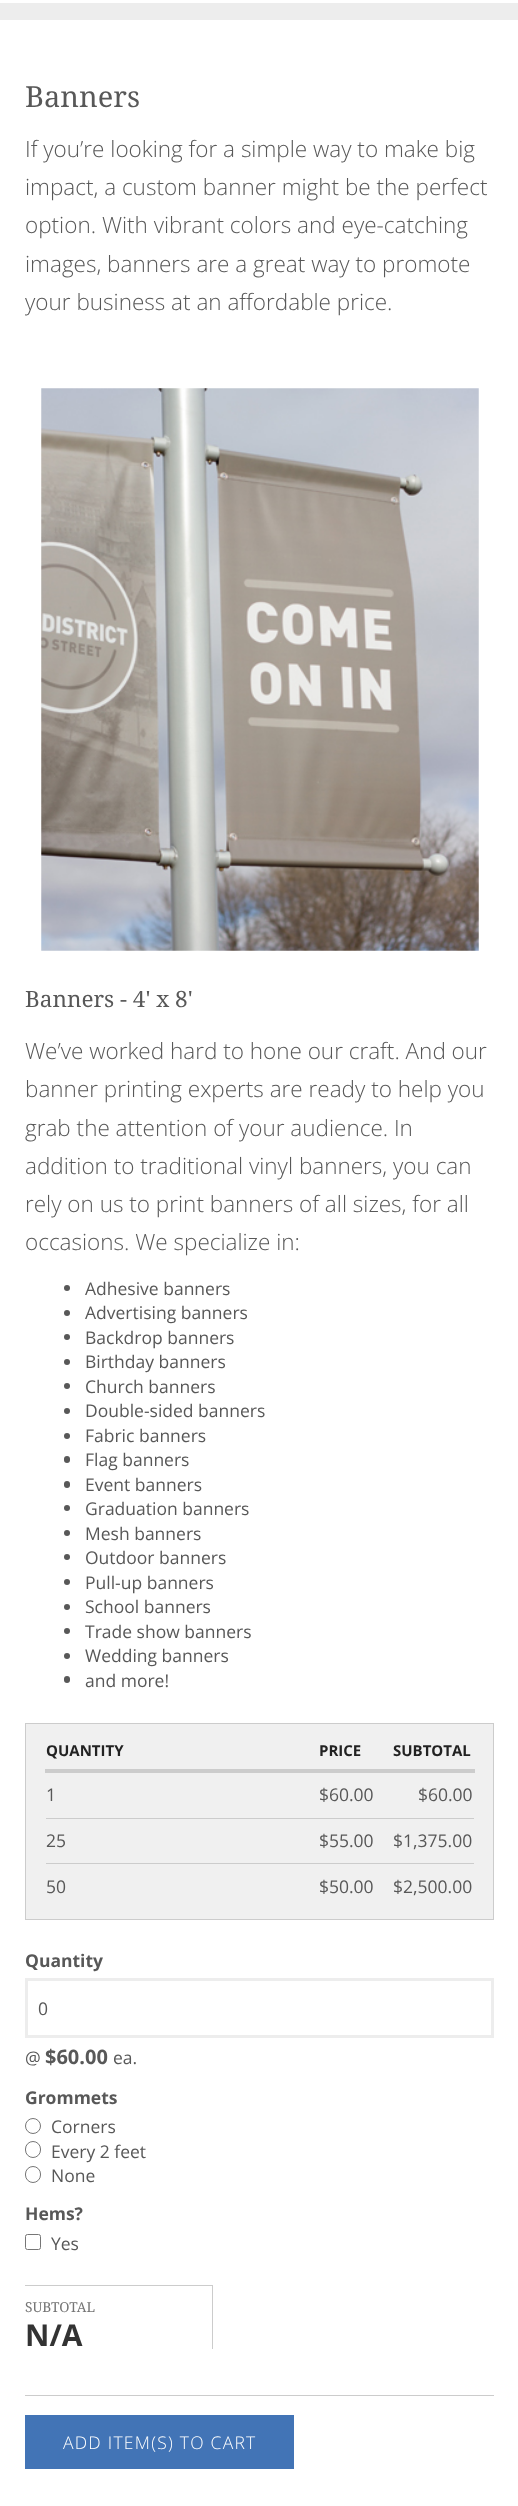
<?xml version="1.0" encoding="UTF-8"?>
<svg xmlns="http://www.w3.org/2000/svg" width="518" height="2506">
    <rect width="100%" height="100%" fill="#FFFFFF"/>
    <rect x="0" y="3" width="518" height="17" fill="#EDEDED"/>
    <text x="25" y="107" font-family="Noto Serif" font-size="29" fill="#585858">Banners</text>
    <text font-family="Open Sans" font-size="22.5" font-weight="300" fill="#585858">
        <tspan x="25" y="157">If you’re looking for a simple way to make big</tspan>
        <tspan x="25" y="195">impact, a custom banner might be the perfect</tspan>
        <tspan x="25" y="233">option. With vibrant colors and eye-catching</tspan>
        <tspan x="25" y="272">images, banners are a great way to promote</tspan>
        <tspan x="25" y="310">your business at an affordable price.</tspan>
    </text>
    <path d="M 25 2395 V 2396 H 494 V 390 V 2395 Z" fill="#CCCCCC"/>
    <image x="41" y="388" width="438" height="563" href="img_01.png"/>
    <text x="25" y="1007" font-family="Noto Serif" font-size="22.5" fill="#585858">Banners - 4' x 8'</text>
    <text font-family="Open Sans" font-size="22.5" font-weight="300" fill="#585858">
        <tspan x="25" y="1059">We’ve worked hard to hone our craft. And our</tspan>
        <tspan x="25" y="1097">banner printing experts are ready to help you</tspan>
        <tspan x="25" y="1136">grab the attention of your audience. In</tspan>
        <tspan x="25" y="1174">addition to traditional vinyl banners, you can</tspan>
        <tspan x="25" y="1212">rely on us to print banners of all sizes, for all</tspan>
        <tspan x="25" y="1250">occasions. We specialize in:</tspan>
    </text>
    <circle cx="67" cy="1288" r="3" fill="#585858"/>
    <text x="85" y="1295" font-family="Open Sans" font-size="17.5" fill="#585858">Adhesive banners</text>
    <circle cx="67" cy="1313" r="3" fill="#585858"/>
    <text x="85" y="1319" font-family="Open Sans" font-size="17.5" fill="#585858">Advertising banners</text>
    <circle cx="67" cy="1337" r="3" fill="#585858"/>
    <text x="85" y="1344" font-family="Open Sans" font-size="17.5" fill="#585858">Backdrop banners</text>
    <circle cx="67" cy="1362" r="3" fill="#585858"/>
    <text x="85" y="1368" font-family="Open Sans" font-size="17.5" fill="#585858">Birthday banners</text>
    <circle cx="67" cy="1386" r="3" fill="#585858"/>
    <text x="85" y="1393" font-family="Open Sans" font-size="17.5" fill="#585858">Church banners</text>
    <circle cx="67" cy="1411" r="3" fill="#585858"/>
    <text x="85" y="1417" font-family="Open Sans" font-size="17.5" fill="#585858">Double-sided banners</text>
    <circle cx="67" cy="1436" r="3" fill="#585858"/>
    <text x="85" y="1442" font-family="Open Sans" font-size="17.5" fill="#585858">Fabric banners</text>
    <rect x="64" y="1456" width="6" height="7" rx="3" fill="#585858"/>
    <text x="85" y="1466" font-family="Open Sans" font-size="17.5" fill="#585858">Flag banners</text>
    <rect x="64" y="1481" width="6" height="7" rx="3" fill="#585858"/>
    <text x="85" y="1491" font-family="Open Sans" font-size="17.5" fill="#585858">Event banners</text>
    <circle cx="67" cy="1508" r="3" fill="#585858"/>
    <text x="85" y="1515" font-family="Open Sans" font-size="17.5" fill="#585858">Graduation banners</text>
    <circle cx="67" cy="1533" r="3" fill="#585858"/>
    <text x="85" y="1540" font-family="Open Sans" font-size="17.5" fill="#585858">Mesh banners</text>
    <circle cx="67" cy="1557" r="3" fill="#585858"/>
    <text x="85" y="1564" font-family="Open Sans" font-size="17.5" fill="#585858">Outdoor banners</text>
    <circle cx="67" cy="1582" r="3" fill="#585858"/>
    <text x="85" y="1589" font-family="Open Sans" font-size="17.5" fill="#585858">Pull-up banners</text>
    <circle cx="67" cy="1607" r="3" fill="#585858"/>
    <text x="85" y="1613" font-family="Open Sans" font-size="17.5" fill="#585858">School banners</text>
    <circle cx="67" cy="1631" r="3" fill="#585858"/>
    <text x="85" y="1638" font-family="Open Sans" font-size="17.5" fill="#585858">Trade show banners</text>
    <circle cx="67" cy="1656" r="3" fill="#585858"/>
    <text x="85" y="1662" font-family="Open Sans" font-size="17.5" fill="#585858">Wedding banners</text>
    <rect x="64" y="1676" width="6" height="7" rx="3" fill="#585858"/>
    <text x="85" y="1687" font-family="Open Sans" font-size="17.5" fill="#585858">and more!</text>
    <rect x="25.5" y="1723.5" width="468" height="196" fill="#F0F0F0" stroke="#CCCCCC"/>
    <text x="46" y="1756" font-family="Open Sans" font-size="15" font-weight="700" fill="#222222">QUANTITY</text>
    <text x="319" y="1756" font-family="Open Sans" font-size="15" font-weight="700" fill="#222222">PRICE</text>
    <rect x="45" y="1769" width="430" height="4" fill="#CCCCCC"/>
    <text x="393" y="1756" font-family="Open Sans" font-size="15" font-weight="700" fill="#222222">SUBTOTAL</text>
    <text x="46" y="1801" font-family="Open Sans" font-size="17.5" fill="#585858">1</text>
    <text x="319" y="1801" font-family="Open Sans" font-size="17.5" fill="#585858">$60.00</text>
    <text x="418" y="1801" font-family="Open Sans" font-size="17.5" fill="#585858">$60.00</text>
    <text x="46" y="1847" font-family="Open Sans" font-size="17.5" fill="#585858">25</text>
    <text x="319" y="1847" font-family="Open Sans" font-size="17.5" fill="#585858">$55.00</text>
    <rect x="46" y="1818" width="428" height="1" fill="#CCCCCC"/>
    <text x="393" y="1847" font-family="Open Sans" font-size="17.5" fill="#585858">$1,375.00</text>
    <text x="46" y="1893" font-family="Open Sans" font-size="17.5" fill="#585858">50</text>
    <text x="319" y="1893" font-family="Open Sans" font-size="17.5" fill="#585858">$50.00</text>
    <rect x="46" y="1863" width="428" height="1" fill="#CCCCCC"/>
    <text x="393" y="1893" font-family="Open Sans" font-size="17.5" fill="#585858">$2,500.00</text>
    <text x="25" y="1967" font-family="Open Sans" font-size="17.5" font-weight="700" fill="#585858">Quantity</text>
    <rect x="26.5" y="1979.5" width="466" height="57" fill="none" stroke="#EDEDED" stroke-width="3"/>
    <text x="38" y="2015" font-family="Open Sans" font-size="17.5" fill="#585858">0</text>
    <text x="25" y="2064" font-family="Open Sans" font-size="17.5" fill="#585858">@</text>
    <text x="45" y="2064" font-family="Open Sans" font-size="20" font-weight="700" fill="#585858">$60.00</text>
    <text x="113" y="2064" font-family="Open Sans" font-size="17.5" fill="#585858">ea.</text>
    <text x="25" y="2104" font-family="Open Sans" font-size="17.5" font-weight="700" fill="#585858">Grommets</text>
    <circle cx="33" cy="2126" r="7.5" fill="none" stroke="#767676"/>
    <text x="51" y="2133" font-family="Open Sans" font-size="17.5" fill="#585858">Corners</text>
    <rect x="25.5" y="2141.5" width="15" height="16" rx="7.5" fill="none" stroke="#767676"/>
    <text x="51" y="2158" font-family="Open Sans" font-size="17.5" fill="#585858">Every 2 feet</text>
    <rect x="25.5" y="2166.5" width="15" height="16" rx="7.5" fill="none" stroke="#767676"/>
    <text x="51" y="2182" font-family="Open Sans" font-size="17.5" fill="#585858">None</text>
    <text x="25" y="2220" font-family="Open Sans" font-size="17.5" font-weight="700" fill="#585858">Hems?</text>
    <rect x="25.5" y="2234.5" width="15" height="15" rx="2" fill="none" stroke="#767676"/>
    <text x="51" y="2250" font-family="Open Sans" font-size="17.5" fill="#585858">Yes</text>
    <path d="M 25 2285 V 2286 H 212 V 2349 H 213 V 2285 Z" fill="#CCCCCC"/>
    <text x="25" y="2312" font-family="Noto Serif" font-size="13.75" fill="#757575">SUBTOTAL</text>
    <text x="25" y="2346" font-family="Open Sans" font-size="30" font-weight="700" fill="#333333">N/A</text>
    <rect x="25" y="2415" width="269" height="54" fill="#4274B6"/>
    <text x="63" y="2449" font-family="Open Sans" font-size="17.5" font-weight="300" letter-spacing="1.25" fill="#FFFFFF">ADD ITEM(S) TO CART</text>
</svg>
